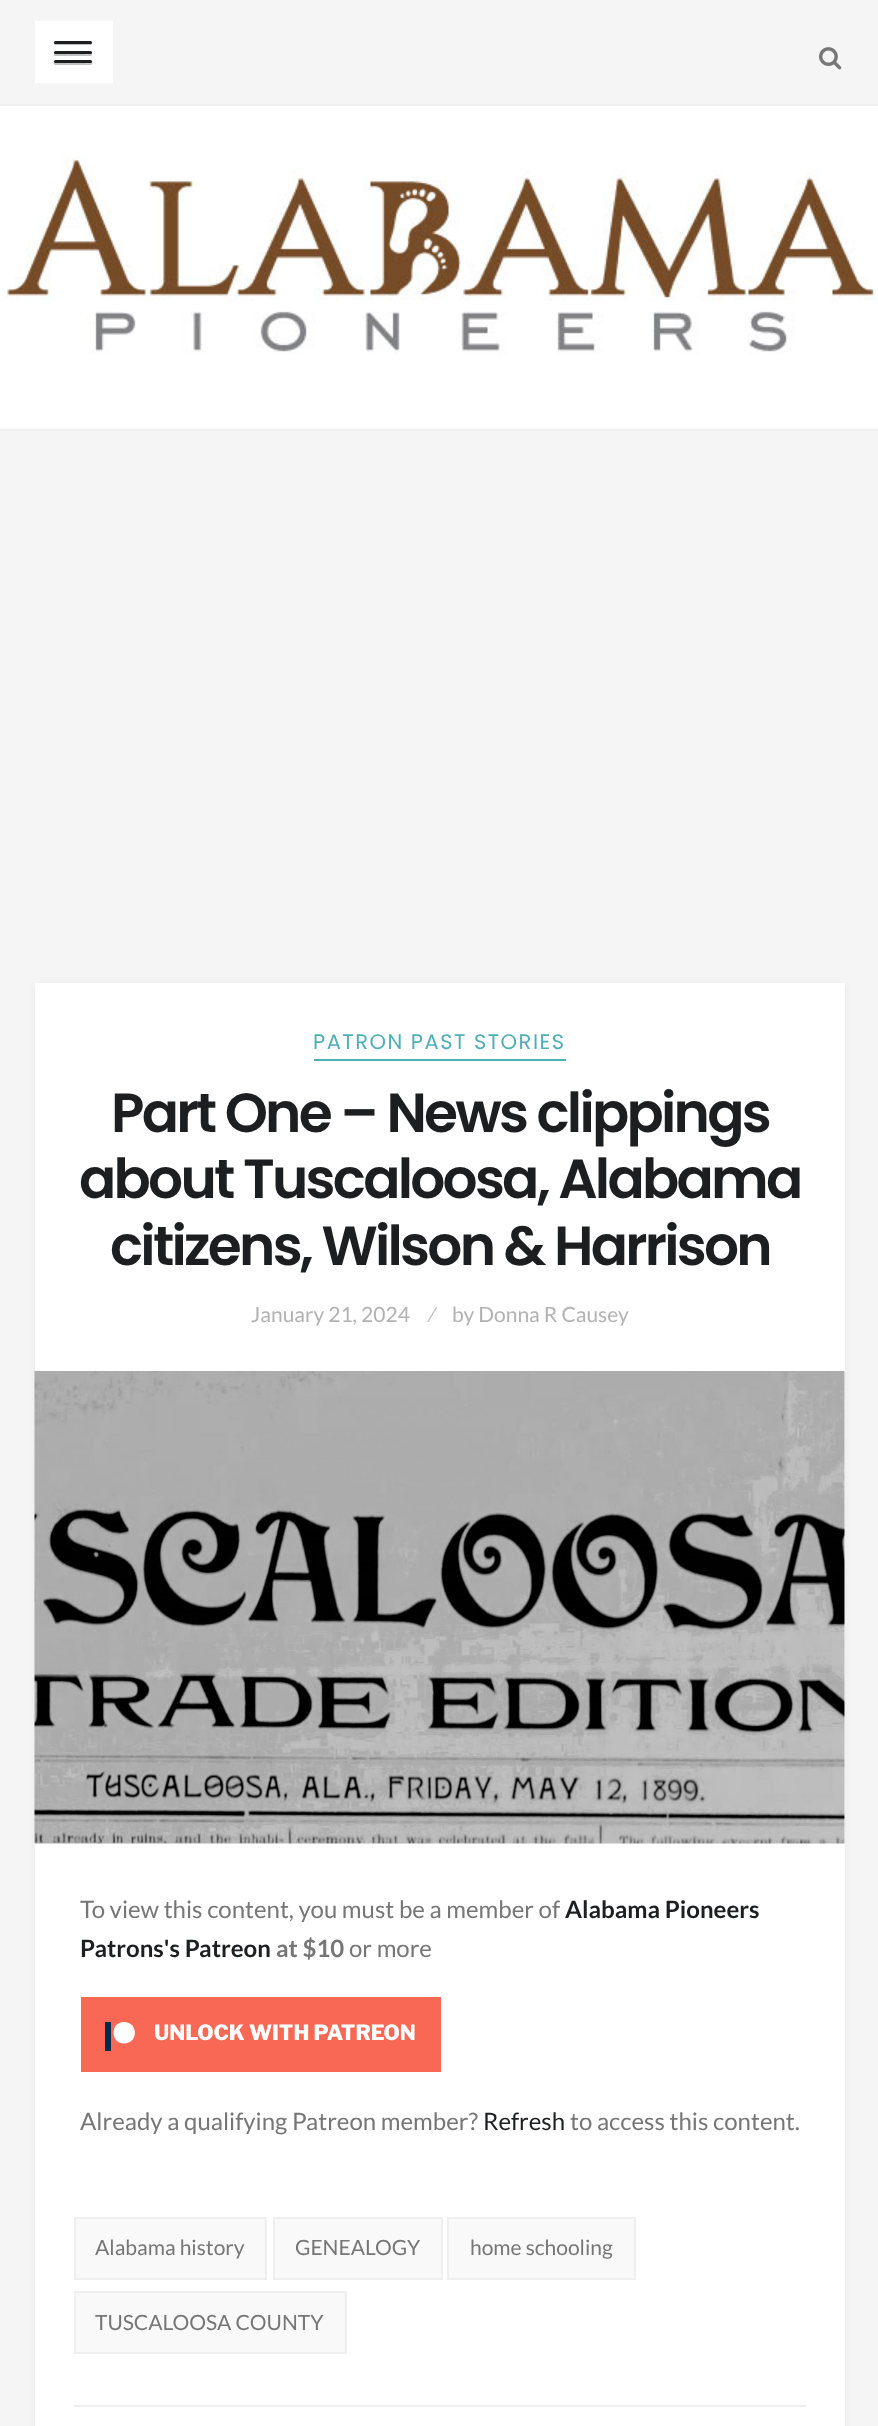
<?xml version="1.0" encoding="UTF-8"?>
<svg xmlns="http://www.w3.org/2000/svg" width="878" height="2426">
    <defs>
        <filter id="blur1" x="-50%" y="-200%" width="200%" height="500%"><feGaussianBlur stdDeviation="4"/></filter>
    </defs>
    <rect width="100%" height="100%" fill="#F5F5F5"/>
    <rect x="0" y="106" width="878" height="323" fill="#FFFFFF"/>
    <rect x="0" y="104" width="878" height="2" fill="#EFEFEF"/>
    <rect x="35" y="21" width="78" height="62" fill="#FFFFFF"/>
    <path d="M 54 42.5 V 44 C 54 44.5 55 45 55.5 45 H 91 C 92 44.5 92.5 43 91.5 42.5 L 90.5 43.5 H 61 C 60.5 43.5 55 44.5 54 42.5 Z" fill="#BFBFBF"/>
    <rect x="54" y="41" width="38" height="3" rx="1.5" fill="#1C1E1F"/>
    <path d="M 54.5 53.5 C 53.5 54.5 54 55.5 55 56 H 91 C 92 55.5 92.5 54 91.5 53 C 90.5 55 85 54 84 54 C 80.5 54 55.5 54.5 54.5 53.5 Z" fill="#BFBFBF"/>
    <rect x="54" y="51" width="38" height="3" rx="1.5" fill="#1C1E1F"/>
    <path d="M 54.5 62.5 C 53.5 63.5 54 64.5 55 65 H 91 C 92 64.5 92.5 63 91.5 62 C 90.5 64 85 63 84 63 C 80.5 63 55.5 63.5 54.5 62.5 Z" fill="#BFBFBF"/>
    <rect x="54" y="60" width="38" height="3" rx="1.5" fill="#1C1E1F"/>
    <image x="819" y="47" width="23" height="23" href="img_01.png"/>
    <image x="3" y="156" width="875" height="199" href="img_02.png"/>
    <rect x="0" y="429" width="878" height="2" fill="#EFEFEF"/>
    <rect x="35" y="984" width="810" height="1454" fill="#000000" fill-opacity="0.05" filter="url(#blur1)"/>
    <rect x="35" y="983" width="810" height="1443" fill="#FFFFFF"/>
    <rect x="314" y="1059" width="252" height="2" fill="#50AEB5"/>
    <text x="313" y="1049" font-family="Poppins" font-size="21" letter-spacing="1.5" fill="#50AEB5">PATRON PAST STORIES</text>
    <text x="111" y="1132" font-family="Poppins" font-size="55" font-weight="600" letter-spacing="-2.75" fill="#1C1E1F">Part One – News clippings</text>
    <text x="79" y="1198" font-family="Poppins" font-size="55" font-weight="600" letter-spacing="-2.75" fill="#1C1E1F">about Tuscaloosa, Alabama</text>
    <text x="110" y="1265" font-family="Poppins" font-size="55" font-weight="600" letter-spacing="-2.75" fill="#1C1E1F">citizens, Wilson &amp; Harrison</text>
    <text x="251" y="1322" font-family="Lato" font-size="21" fill="#B2B2B2">January 21, 2024</text>
    <text x="429" y="1322" font-family="Lato" font-size="21" fill="#C0C0C0">⁄</text>
    <text x="452" y="1322" font-family="Lato" font-size="21" fill="#B2B2B2">by Donna R Causey</text>
    <image x="34" y="1371" width="811" height="473" href="img_03.png"/>
    <text x="80" y="1918" font-family="Lato" font-size="24" fill="#767676">To view this content, you must be a member of</text>
    <text x="565" y="1918" font-family="Lato" font-size="24" font-weight="700" fill="#1C1E1F">Alabama Pioneers</text>
    <text x="80" y="1957" font-family="Lato" font-size="24" font-weight="700" fill="#1C1E1F">Patrons's Patreon</text>
    <text x="276" y="1957" font-family="Lato" font-size="24" font-weight="700" fill="#767676">at $10</text>
    <text x="349" y="1957" font-family="Lato" font-size="24" fill="#767676">or more</text>
    <rect x="81" y="1997" width="360" height="75" fill="#F96854"/>
    <path d="M 124 2022 C 110 2022 110 2043.5 124 2043.5 C 138.5 2043.5 138.5 2022 124 2022" fill="#FFFFFF" fill-rule="evenodd"/>
    <rect x="105" y="2022" width="6" height="29" fill="#052D49"/>
    <text x="154" y="2040" font-family="Libre Franklin" font-size="21" font-weight="800" fill="#FFFFFF">UNLOCK WITH PATREON</text>
    <text x="80" y="2130" font-family="Lato" font-size="24" fill="#767676">Already a qualifying Patreon member?</text>
    <text x="483" y="2130" font-family="Lato" font-size="24" fill="#1C1E1F">Refresh</text>
    <text x="570" y="2130" font-family="Lato" font-size="24" fill="#767676">to access this content.</text>
    <rect x="75" y="2218" width="191" height="61" fill="#F9F9F9" stroke="#EFEFEF" stroke-width="2"/>
    <text x="95" y="2255" font-family="Lato" font-size="21" fill="#767676">Alabama history</text>
    <rect x="274" y="2218" width="168" height="61" fill="#F9F9F9" stroke="#EFEFEF" stroke-width="2"/>
    <text x="295" y="2255" font-family="Lato" font-size="21" fill="#767676">GENEALOGY</text>
    <rect x="448" y="2218" width="187" height="61" fill="#F9F9F9" stroke="#EFEFEF" stroke-width="2"/>
    <text x="470" y="2255" font-family="Lato" font-size="21" fill="#767676">home schooling</text>
    <rect x="75" y="2292" width="271" height="61" fill="#F9F9F9" stroke="#EFEFEF" stroke-width="2"/>
    <text x="95" y="2330" font-family="Lato" font-size="21" fill="#767676">TUSCALOOSA COUNTY</text>
    <rect x="74" y="2405" width="732" height="2" fill="#EFEFEF"/>
</svg>
